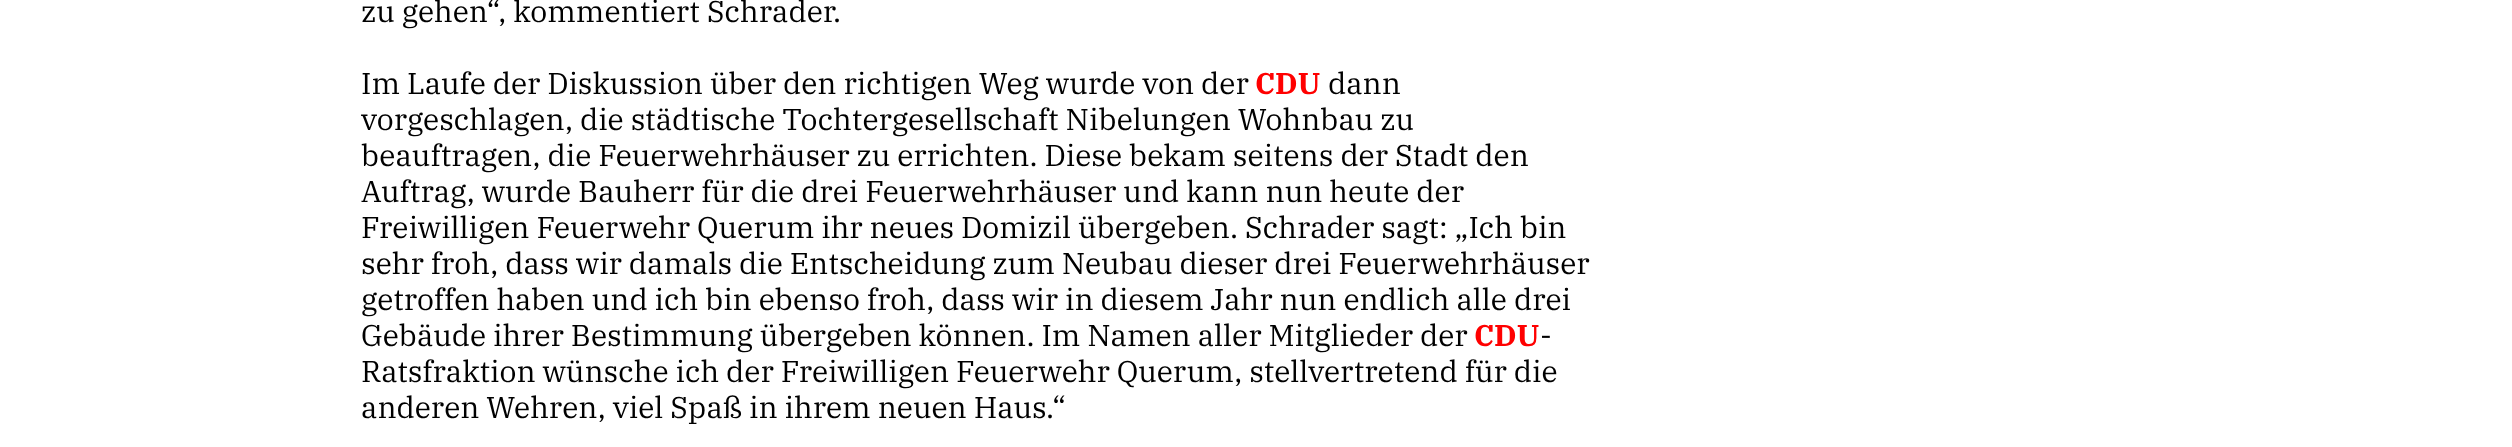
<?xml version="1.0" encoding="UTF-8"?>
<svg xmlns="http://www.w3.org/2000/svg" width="2512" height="447">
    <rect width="100%" height="100%" fill="#FFFFFF"/>
    <text x="361" y="22" font-family="IBM Plex Serif" font-size="30" fill="#000000">zu gehen“, kommentiert Schrader.</text>
    <text x="361" y="94" font-family="IBM Plex Serif" font-size="30" fill="#000000">Im Laufe der Diskussion über den richtigen Weg wurde von der</text>
    <text x="1255" y="94" font-family="IBM Plex Serif" font-size="30" font-weight="700" fill="#FF0000">CDU</text>
    <text x="1328" y="94" font-family="IBM Plex Serif" font-size="30" fill="#000000">dann</text>
    <text font-family="IBM Plex Serif" font-size="30" fill="#000000">
        <tspan x="361" y="130">vorgeschlagen, die städtische Tochtergesellschaft Nibelungen Wohnbau zu</tspan>
        <tspan x="361" y="166">beauftragen, die Feuerwehrhäuser zu errichten. Diese bekam seitens der Stadt den</tspan>
        <tspan x="361" y="202">Auftrag, wurde Bauherr für die drei Feuerwehrhäuser und kann nun heute der</tspan>
        <tspan x="361" y="238">Freiwilligen Feuerwehr Querum ihr neues Domizil übergeben. Schrader sagt: „Ich bin</tspan>
        <tspan x="361" y="274">sehr froh, dass wir damals die Entscheidung zum Neubau dieser drei Feuerwehrhäuser</tspan>
        <tspan x="361" y="310">getroffen haben und ich bin ebenso froh, dass wir in diesem Jahr nun endlich alle drei</tspan>
        <tspan x="361" y="346">Gebäude ihrer Bestimmung übergeben können. Im Namen aller Mitglieder der</tspan>
    </text>
    <text x="1474" y="346" font-family="IBM Plex Serif" font-size="30" font-weight="700" fill="#FF0000">CDU</text>
    <text x="1540" y="346" font-family="IBM Plex Serif" font-size="30" fill="#000000">-</text>
    <text font-family="IBM Plex Serif" font-size="30" fill="#000000">
        <tspan x="361" y="382">Ratsfraktion wünsche ich der Freiwilligen Feuerwehr Querum, stellvertretend für die</tspan>
        <tspan x="361" y="418">anderen Wehren, viel Spaß in ihrem neuen Haus.“</tspan>
    </text>
</svg>
